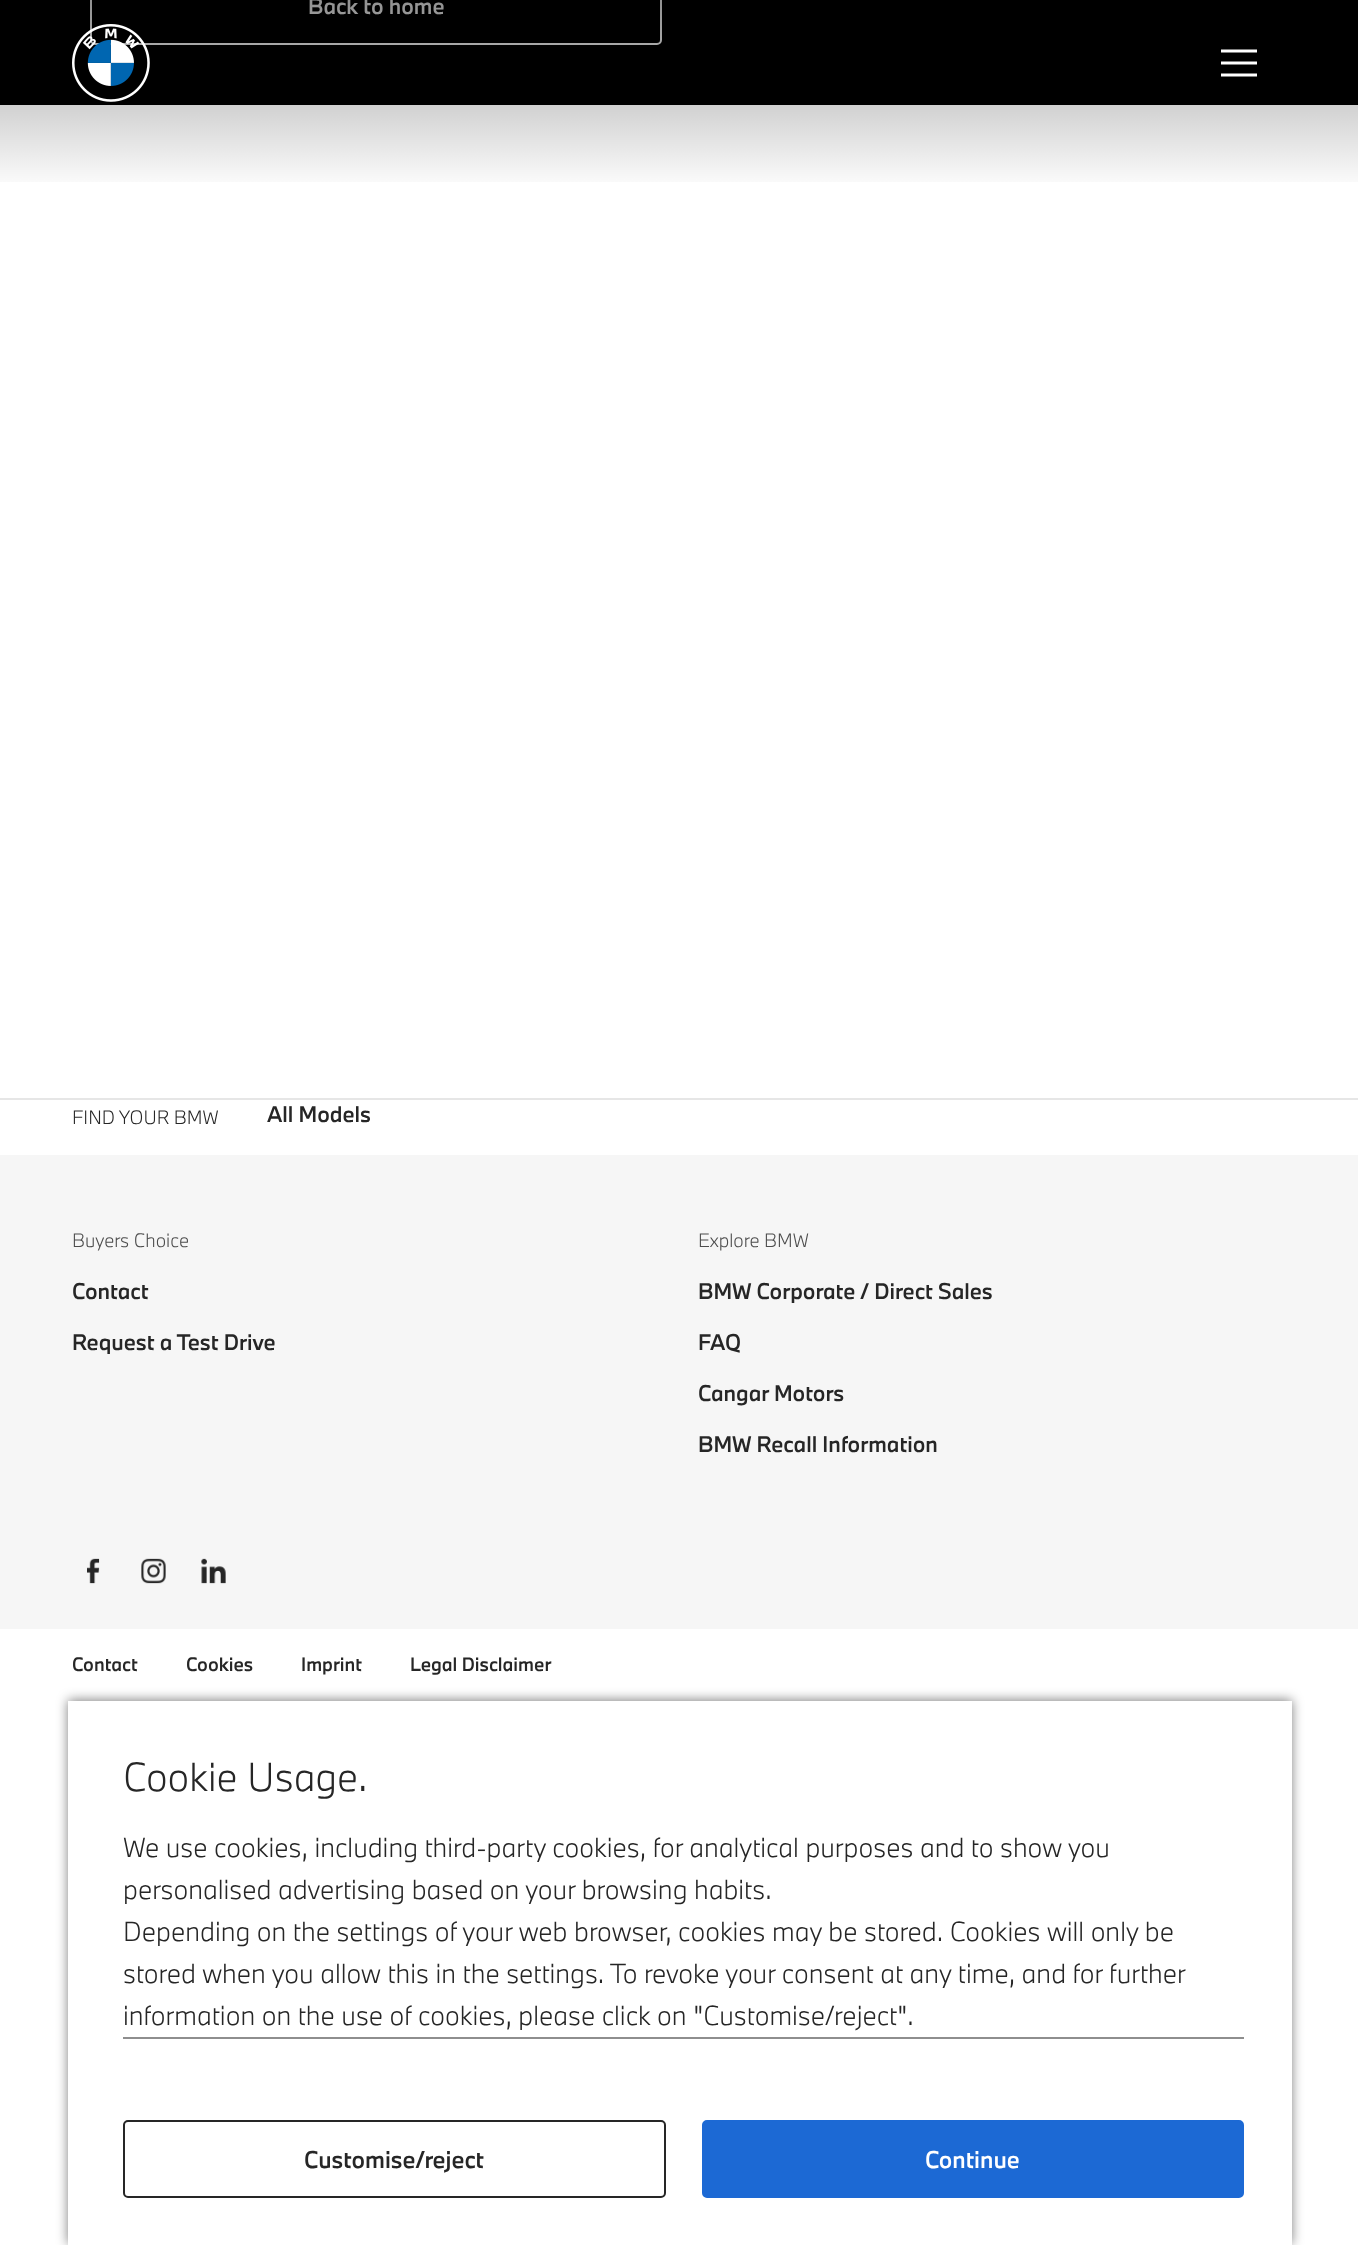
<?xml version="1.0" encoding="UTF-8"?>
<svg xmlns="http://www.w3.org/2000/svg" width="1358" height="2245">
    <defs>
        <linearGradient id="g1" gradientUnits="userSpaceOnUse" x1="680" y1="-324" x2="680" y2="105"><stop offset="0" stop-color="#FFFFFF"/><stop offset="0.66" stop-color="#000000"/></linearGradient>
        <linearGradient id="g2" gradientUnits="userSpaceOnUse" x1="680" y1="192" x2="680" y2="0"><stop offset="0" stop-color="#000000" stop-opacity="0"/><stop offset="1" stop-color="#000000" stop-opacity="0.4"/></linearGradient>
        <filter id="blur1" x="-50%" y="-200%" width="200%" height="500%"><feGaussianBlur stdDeviation="6"/></filter>
    </defs>
    <rect width="100%" height="100%" fill="#FFFFFF"/>
    <rect x="0" y="0" width="1358" height="105" fill="url(#g1)"/>
    <rect x="91" y="-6" width="570" height="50" rx="4" fill="none" stroke="#F2F2F2" stroke-width="2"/>
    <text x="308" y="14" font-family="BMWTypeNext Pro" font-size="21" font-weight="500" fill="#F2F2F2">Back to home</text>
    <rect x="0" y="0" width="1358" height="182" fill="url(#g2)"/>
    <image x="72" y="24" width="78" height="78" href="img_01.png"/>
    <path d="M 1257 64.5 H 1221 V 61.5 H 1257 Z M 1257 52.5 H 1221 V 49.5 H 1257 Z M 1257 76.5 H 1221 V 73.5 H 1257 Z" fill="#FFFFFF"/>
    <rect x="0" y="1098" width="1358" height="2" fill="#E6E6E6"/>
    <text x="72" y="1124" font-family="BMWTypeNext Pro" font-size="18" font-weight="300" fill="#262626">FIND YOUR BMW</text>
    <text x="267" y="1122" font-family="BMWTypeNext Pro" font-size="21" font-weight="500" fill="#262626">All Models</text>
    <rect x="0" y="1155" width="1358" height="474" fill="#F6F6F6"/>
    <text x="72" y="1247" font-family="BMWTypeNext Pro" font-size="18" font-weight="300" fill="#4D4D4D">Buyers Choice</text>
    <text x="72" y="1299" font-family="BMWTypeNext Pro" font-size="21" font-weight="500" fill="#262626">Contact</text>
    <text x="72" y="1350" font-family="BMWTypeNext Pro" font-size="21" font-weight="500" fill="#262626">Request a Test Drive</text>
    <text x="698" y="1247" font-family="BMWTypeNext Pro" font-size="18" font-weight="300" fill="#4D4D4D">Explore BMW</text>
    <text x="698" y="1299" font-family="BMWTypeNext Pro" font-size="21" font-weight="500" fill="#262626">BMW Corporate / Direct Sales</text>
    <text x="698" y="1350" font-family="BMWTypeNext Pro" font-size="21" font-weight="500" fill="#262626">FAQ</text>
    <text x="698" y="1401" font-family="BMWTypeNext Pro" font-size="21" font-weight="500" fill="#262626">Cangar Motors</text>
    <text x="698" y="1452" font-family="BMWTypeNext Pro" font-size="21" font-weight="500" fill="#262626">BMW Recall Information</text>
    <image x="87" y="1558" width="13" height="26" href="img_02.png"/>
    <image x="141" y="1558" width="25" height="26" href="img_03.png"/>
    <image x="201" y="1558" width="25" height="26" href="img_04.png"/>
    <text x="72" y="1671" font-family="BMWTypeNext Pro" font-size="18" font-weight="500" fill="#262626">Contact</text>
    <text x="186" y="1671" font-family="BMWTypeNext Pro" font-size="18" font-weight="500" fill="#262626">Cookies</text>
    <text x="301" y="1671" font-family="BMWTypeNext Pro" font-size="18" font-weight="500" fill="#262626">Imprint</text>
    <text x="410" y="1671" font-family="BMWTypeNext Pro" font-size="18" font-weight="500" fill="#262626">Legal Disclaimer</text>
    <rect x="68" y="1700" width="1224" height="544" fill="#000000" fill-opacity="0.5" filter="url(#blur1)"/>
    <rect x="68" y="1701" width="1224" height="544" fill="#FFFFFF"/>
    <text x="123" y="1791" font-family="BMWTypeNext Pro" font-size="37.5" font-weight="300" fill="#262626">Cookie Usage.</text>
    <text font-family="BMWTypeNext Pro" font-size="25.5" font-weight="300" fill="#262626">
        <tspan x="123" y="1857">We use cookies, including third-party cookies, for analytical purposes and to show you</tspan>
        <tspan x="123" y="1899">personalised advertising based on your browsing habits.</tspan>
        <tspan x="123" y="1941">Depending on the settings of your web browser, cookies may be stored. Cookies will only be</tspan>
        <tspan x="123" y="1983">stored when you allow this in the settings. To revoke your consent at any time, and for further</tspan>
        <tspan x="123" y="2025">information on the use of cookies, please click on "Customise/reject".</tspan>
    </text>
    <rect x="123" y="2037" width="1121" height="2" fill="#8E8E8E"/>
    <rect x="124" y="2121" width="541" height="76" rx="4" fill="none" stroke="#262626" stroke-width="2"/>
    <text x="304" y="2168" font-family="BMWTypeNext Pro" font-size="22.5" font-weight="500" fill="#262626">Customise/reject</text>
    <rect x="703" y="2121" width="540" height="76" rx="4" fill="#1C69D4" stroke="#1C69D4" stroke-width="2"/>
    <text x="925" y="2168" font-family="BMWTypeNext Pro" font-size="22.5" font-weight="500" fill="#FFFFFF">Continue</text>
</svg>
